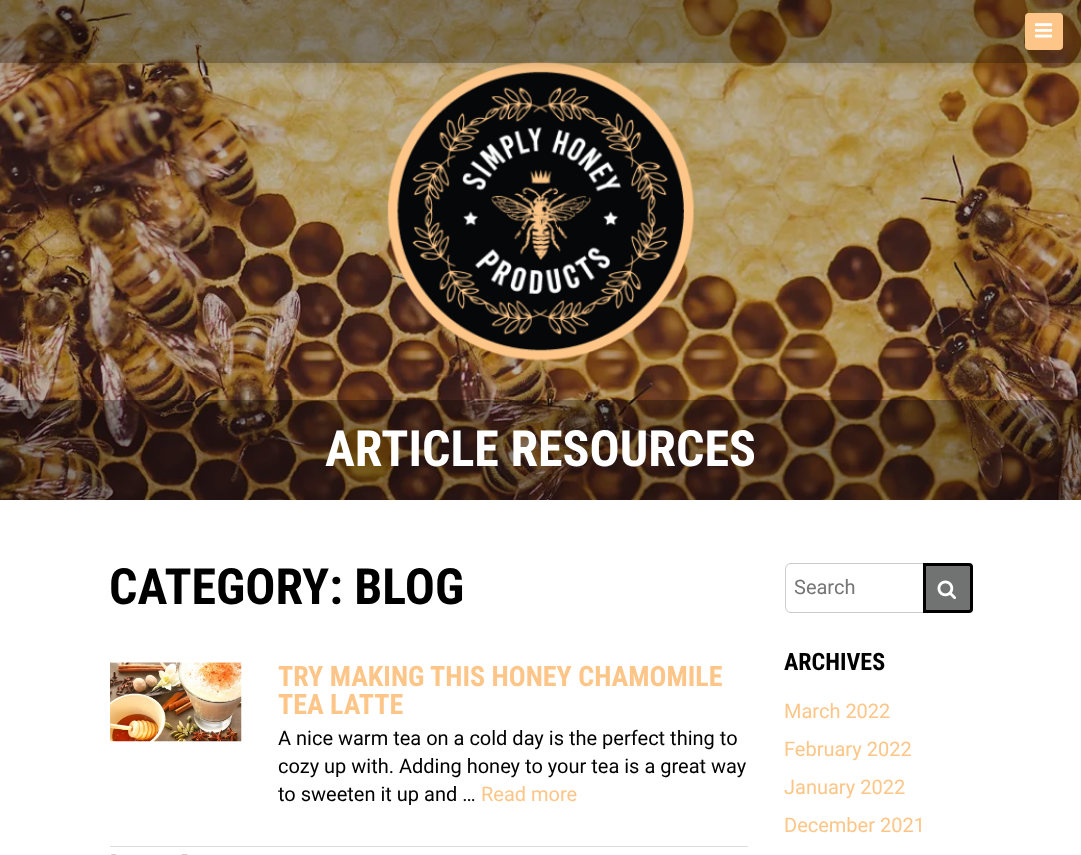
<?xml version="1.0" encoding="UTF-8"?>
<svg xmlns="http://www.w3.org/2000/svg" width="1081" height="855">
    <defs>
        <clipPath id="clip1"><path d="M 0 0 H 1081 V 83 H 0 Z M 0 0 H 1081 V 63 H 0 Z" clip-rule="evenodd"/></clipPath>
        <filter id="blur1" x="-50%" y="-200%" width="200%" height="500%"><feGaussianBlur stdDeviation="6"/></filter>
    </defs>
    <rect width="100%" height="100%" fill="#FFFFFF"/>
    <image x="0" y="0" width="1081" height="500" href="img_02.png"/>
    <image x="387" y="61" width="308" height="300" href="img_03.png"/>
    <g clip-path="url(#clip1)">
        <rect x="0" y="1" width="1081" height="63" fill="#000000" fill-opacity="0.15" filter="url(#blur1)"/>
    </g>
    <rect x="0" y="0" width="1081" height="63" fill="#000000" fill-opacity="0.3"/>
    <rect x="1025" y="13" width="38" height="37" rx="4" fill="#FDC688"/>
    <image x="1035" y="23" width="18" height="15" href="img_01.png"/>
    <rect x="0" y="400" width="1081" height="100" fill="#000000" fill-opacity="0.3"/>
    <text x="325" y="466" font-family="Roboto Condensed" font-size="50" font-weight="700" fill="#FFFFFF">ARTICLE RESOURCES</text>
    <text x="109" y="604" font-family="Roboto Condensed" font-size="50" font-weight="700" fill="#000000">CATEGORY: BLOG</text>
    <image x="110" y="662" width="132" height="80" href="img_04.png"/>
    <text font-family="Roboto Condensed" font-size="28" font-weight="700" fill="#FDC688">
        <tspan x="278" y="686">TRY MAKING THIS HONEY CHAMOMILE</tspan>
        <tspan x="278" y="714">TEA LATTE</tspan>
    </text>
    <text font-family="Roboto" font-size="20" fill="#000000">
        <tspan x="278" y="745">A nice warm tea on a cold day is the perfect thing to</tspan>
        <tspan x="278" y="773">cozy up with. Adding honey to your tea is a great way</tspan>
        <tspan x="278" y="801">to sweeten it up and …</tspan>
    </text>
    <text x="481" y="801" font-family="Roboto" font-size="20" fill="#FDC688">Read more</text>
    <rect x="110" y="846" width="638" height="1" fill="#DDDDDD"/>
    <image x="111" y="854" width="6" height="1" href="img_05.png"/>
    <image x="181" y="854" width="7" height="1" href="img_06.png"/>
    <rect x="785.5" y="563.5" width="187" height="49" rx="5.5" fill="none" stroke="#CCCCCC"/>
    <text x="794" y="594" font-family="Roboto" font-size="20" fill="#757575">Search</text>
    <path d="M 924.5 564.5 H 969 C 970.5 564.5 971.5 565.5 971.5 567 V 609 C 971.5 610.5 970.5 611.5 969 611.5 H 924.5 Z" fill="#717372" stroke="#000000" stroke-width="3"/>
    <image x="937" y="580" width="19" height="20" href="img_07.png"/>
    <text x="784" y="670" font-family="Roboto Condensed" font-size="24" font-weight="700" fill="#000000">ARCHIVES</text>
    <text font-family="Roboto" font-size="20" fill="#FDC688">
        <tspan x="784" y="718">March 2022</tspan>
        <tspan x="784" y="756">February 2022</tspan>
        <tspan x="784" y="794">January 2022</tspan>
        <tspan x="784" y="832">December 2021</tspan>
    </text>
</svg>
